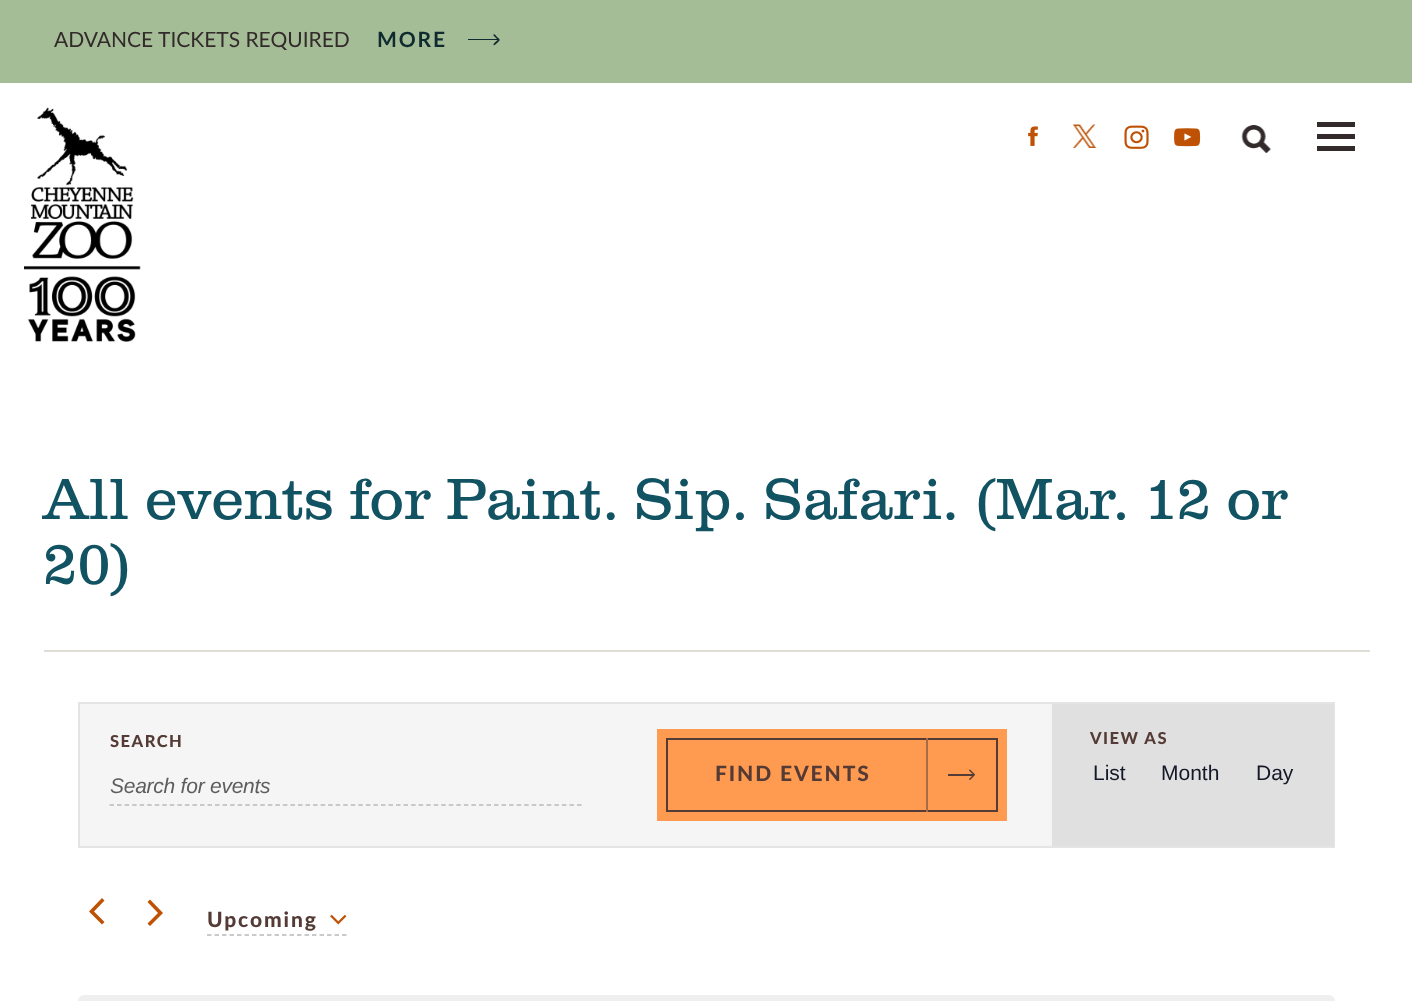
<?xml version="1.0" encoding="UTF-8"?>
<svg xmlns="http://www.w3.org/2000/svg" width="1412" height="1001">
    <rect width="100%" height="100%" fill="#FFFFFF"/>
    <rect x="0" y="0" width="1412" height="83" fill="#A5BD96"/>
    <text x="54" y="47" font-family="Lato" font-size="21" fill="#322A2B">ADVANCE TICKETS REQUIRED</text>
    <text x="377" y="47" font-family="Lato" font-size="21" font-weight="700" letter-spacing="1.9" fill="#102B30">MORE</text>
    <rect x="468" y="39" width="30" height="1" fill="#102B30"/>
    <path d="M 499.5 40.5 C 500.5 39.5 497.5 37.5 497 37 C 497 36.5 494 33 493.5 34.5 V 35.5 L 498 40 C 497 40.5 493 44 493.5 45 C 494.5 46.5 499 41 499.5 40.5 Z" fill="#102B30"/>
    <image x="24" y="107" width="117" height="235" href="img_01.png"/>
    <image x="1028" y="126" width="10" height="20" href="img_02.png"/>
    <image x="1072" y="124" width="25" height="24" href="img_03.png"/>
    <image x="1124" y="125" width="25" height="24" href="img_04.png"/>
    <image x="1174" y="128" width="27" height="19" href="img_05.png"/>
    <image x="1241" y="125" width="30" height="29" href="img_06.png"/>
    <rect x="1317" y="146" width="38" height="5" fill="#322A2B"/>
    <rect x="1317" y="122" width="38" height="5" fill="#322A2B"/>
    <rect x="1317" y="134" width="38" height="5" fill="#322A2B"/>
    <rect x="44" y="650" width="1326" height="2" fill="#E0DDD6"/>
    <text font-family="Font" font-size="60" fill="#115362">
        <tspan x="43" y="519">All events for Paint. Sip. Safari. (Mar. 12 or</tspan>
        <tspan x="43" y="584">20)</tspan>
    </text>
    <rect x="80" y="704" width="972" height="142" fill="#F5F5F5"/>
    <rect x="79" y="703" width="1255" height="144" fill="none" stroke="#E4E4E4" stroke-width="2"/>
    <text x="110" y="747" font-family="Lato" font-size="16.5" font-weight="900" letter-spacing="1.5" fill="#543B35">SEARCH</text>
    <rect x="657" y="729" width="350" height="92" fill="#FF9A51"/>
    <rect x="667" y="739" width="330" height="72" fill="none" stroke="#543B35" stroke-width="2"/>
    <text x="715" y="781" font-family="Lato" font-size="21" font-weight="900" letter-spacing="1.9" fill="#543B35">FIND EVENTS</text>
    <image x="948" y="769" width="27" height="11" href="img_07.png"/>
    <rect x="926" y="738" width="2" height="74" fill="#A96A47"/>
    <path d="M 109.5 805 H 582" fill="none" stroke="#B9B9B9" stroke-width="1.5" stroke-dasharray="4.5 3.04"/>
    <text x="110" y="793" font-family="Liberation Sans" font-size="21" font-style="italic" letter-spacing="-0.25" fill="#5D5D5D">Search for events</text>
    <rect x="1052" y="704" width="282" height="142" fill="#E0E0E0"/>
    <text x="1090" y="744" font-family="Lato" font-size="16.5" font-weight="900" letter-spacing="1.5" fill="#543B35">VIEW AS</text>
    <text x="1093" y="780" font-family="Liberation Sans" font-size="21" fill="#141827">List</text>
    <text x="1161" y="780" font-family="Liberation Sans" font-size="21" fill="#141827">Month</text>
    <text x="1256" y="780" font-family="Liberation Sans" font-size="21" fill="#141827">Day</text>
    <path d="M 104.5 922 L 102 924.5 L 89 911.5 L 102 898 L 104.5 900.5 L 94 911.5 Z" fill="#BE5104"/>
    <path d="M 147.5 902 L 150 899.5 L 163 913 L 150 926 L 147.5 923.5 L 158 913 Z" fill="#BE5104"/>
    <path d="M 207 935 H 346.5" fill="none" stroke="#B9B9B9" stroke-width="1.5" stroke-dasharray="4.5 3"/>
    <text x="207" y="927" font-family="Lato" font-size="21" font-weight="900" letter-spacing="1.9" fill="#543B35">Upcoming</text>
    <image x="330" y="914" width="17" height="11" href="img_08.png"/>
    <rect x="78" y="995" width="1257" height="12" rx="6" fill="#EFEFF0"/>
</svg>
